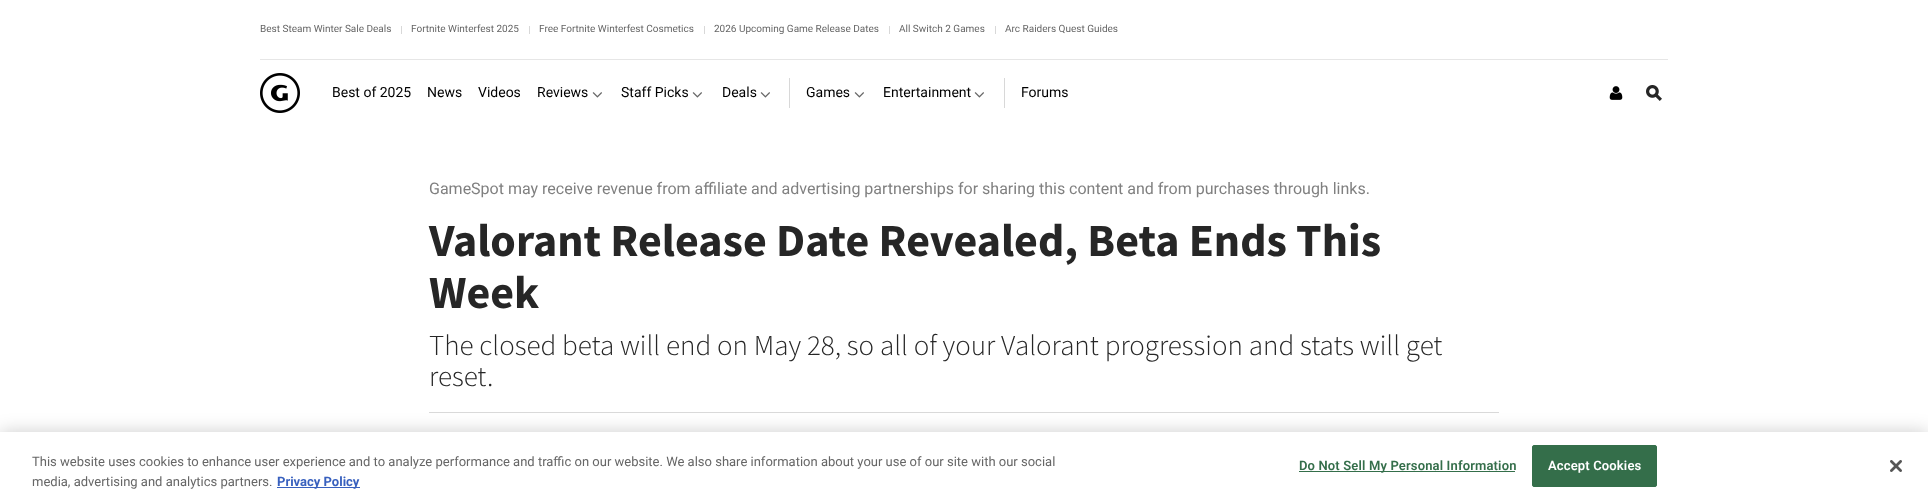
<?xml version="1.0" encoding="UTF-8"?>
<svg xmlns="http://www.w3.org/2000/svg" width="1928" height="503">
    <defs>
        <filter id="blur1" x="-50%" y="-200%" width="200%" height="500%"><feGaussianBlur stdDeviation="9"/></filter>
    </defs>
    <rect width="100%" height="100%" fill="#FFFFFF"/>
    <rect x="260" y="59" width="1408" height="1" fill="#E6E6E6"/>
    <text x="260" y="32" font-family="Roboto" font-size="10" fill="#666666">Best Steam Winter Sale Deals</text>
    <rect x="401" y="26" width="1" height="8" fill="#D8D8D8"/>
    <text x="411" y="32" font-family="Roboto" font-size="10" fill="#666666">Fortnite Winterfest 2025</text>
    <rect x="529" y="26" width="1" height="8" fill="#D8D8D8"/>
    <text x="539" y="32" font-family="Roboto" font-size="10" fill="#666666">Free Fortnite Winterfest Cosmetics</text>
    <rect x="704" y="26" width="1" height="8" fill="#D8D8D8"/>
    <text x="714" y="32" font-family="Roboto" font-size="10" fill="#666666">2026 Upcoming Game Release Dates</text>
    <rect x="889" y="26" width="1" height="8" fill="#D8D8D8"/>
    <text x="899" y="32" font-family="Roboto" font-size="10" fill="#666666">All Switch 2 Games</text>
    <rect x="995" y="26" width="1" height="8" fill="#D8D8D8"/>
    <text x="1005" y="32" font-family="Roboto" font-size="10" fill="#666666">Arc Raiders Quest Guides</text>
    <image x="260" y="73" width="40" height="40" href="img_01.png"/>
    <text x="332" y="97" font-family="Roboto" font-size="14" fill="#000000">Best of 2025</text>
    <text x="427" y="97" font-family="Roboto" font-size="14" fill="#000000">News</text>
    <text x="478" y="97" font-family="Roboto" font-size="14" fill="#000000">Videos</text>
    <text x="537" y="97" font-family="Roboto" font-size="14" fill="#000000">Reviews</text>
    <image x="592" y="92" width="10" height="6" href="img_02.png"/>
    <text x="621" y="97" font-family="Roboto" font-size="14" fill="#000000">Staff Picks</text>
    <image x="692" y="92" width="10" height="6" href="img_02.png"/>
    <text x="722" y="97" font-family="Roboto" font-size="14" fill="#000000">Deals</text>
    <image x="760" y="92" width="10" height="6" href="img_02.png"/>
    <rect x="789" y="78" width="1" height="30" fill="#D8D8D8"/>
    <text x="806" y="97" font-family="Roboto" font-size="14" fill="#000000">Games</text>
    <image x="854" y="92" width="10" height="6" href="img_02.png"/>
    <text x="883" y="97" font-family="Roboto" font-size="14" fill="#000000">Entertainment</text>
    <image x="974" y="92" width="10" height="6" href="img_02.png"/>
    <rect x="1004" y="78" width="1" height="30" fill="#D8D8D8"/>
    <text x="1021" y="97" font-family="Roboto" font-size="14" fill="#000000">Forums</text>
    <image x="1609" y="86" width="14" height="14" href="img_03.png"/>
    <image x="1646" y="85" width="16" height="16" href="img_04.png"/>
    <text x="429" y="194" font-family="Roboto" font-size="16" fill="#808080">GameSpot may receive revenue from affiliate and advertising partnerships for sharing this content and from purchases through links.</text>
    <text font-family="Source Sans Pro" font-size="46" font-weight="700" fill="#262626">
        <tspan x="429" y="256">Valorant Release Date Revealed, Beta Ends This</tspan>
        <tspan x="429" y="308">Week</tspan>
    </text>
    <text font-family="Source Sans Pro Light" font-size="29" font-weight="300" fill="#262626">
        <tspan x="429" y="355">The closed beta will end on May 28, so all of your Valorant progression and stats will get</tspan>
        <tspan x="429" y="386">reset.</tspan>
    </text>
    <rect x="429" y="412" width="1070" height="1" fill="#D9D9D9"/>
    <rect x="0" y="432" width="1928" height="71" fill="#000000" fill-opacity="0.2" filter="url(#blur1)"/>
    <rect x="0" y="432" width="1928" height="71" fill="#FFFFFF"/>
    <text font-family="Roboto" font-size="13" fill="#666666">
        <tspan x="32" y="466">This website uses cookies to enhance user experience and to analyze performance and traffic on our website. We also share information about your use of our site with our social</tspan>
        <tspan x="32" y="486">media, advertising and analytics partners.</tspan>
    </text>
    <rect x="277" y="487" width="83" height="1" fill="#3860BE"/>
    <text x="277" y="486" font-family="Roboto" font-size="13" font-weight="700" fill="#3860BE">Privacy Policy</text>
    <rect x="1299" y="471" width="216" height="1" fill="#346E4A"/>
    <text x="1299" y="470" font-family="Roboto" font-size="13" font-weight="600" letter-spacing="0.15" fill="#346E4A">Do Not Sell My Personal Information</text>
    <rect x="1532.5" y="445.5" width="124" height="41" rx="1.5" fill="#346E4A" stroke="#346E4A"/>
    <text x="1548" y="470" font-family="Roboto" font-size="13" font-weight="600" letter-spacing="0.15" fill="#FFFFFF">Accept Cookies</text>
    <image x="1890" y="460" width="12" height="12" href="img_05.png"/>
</svg>
